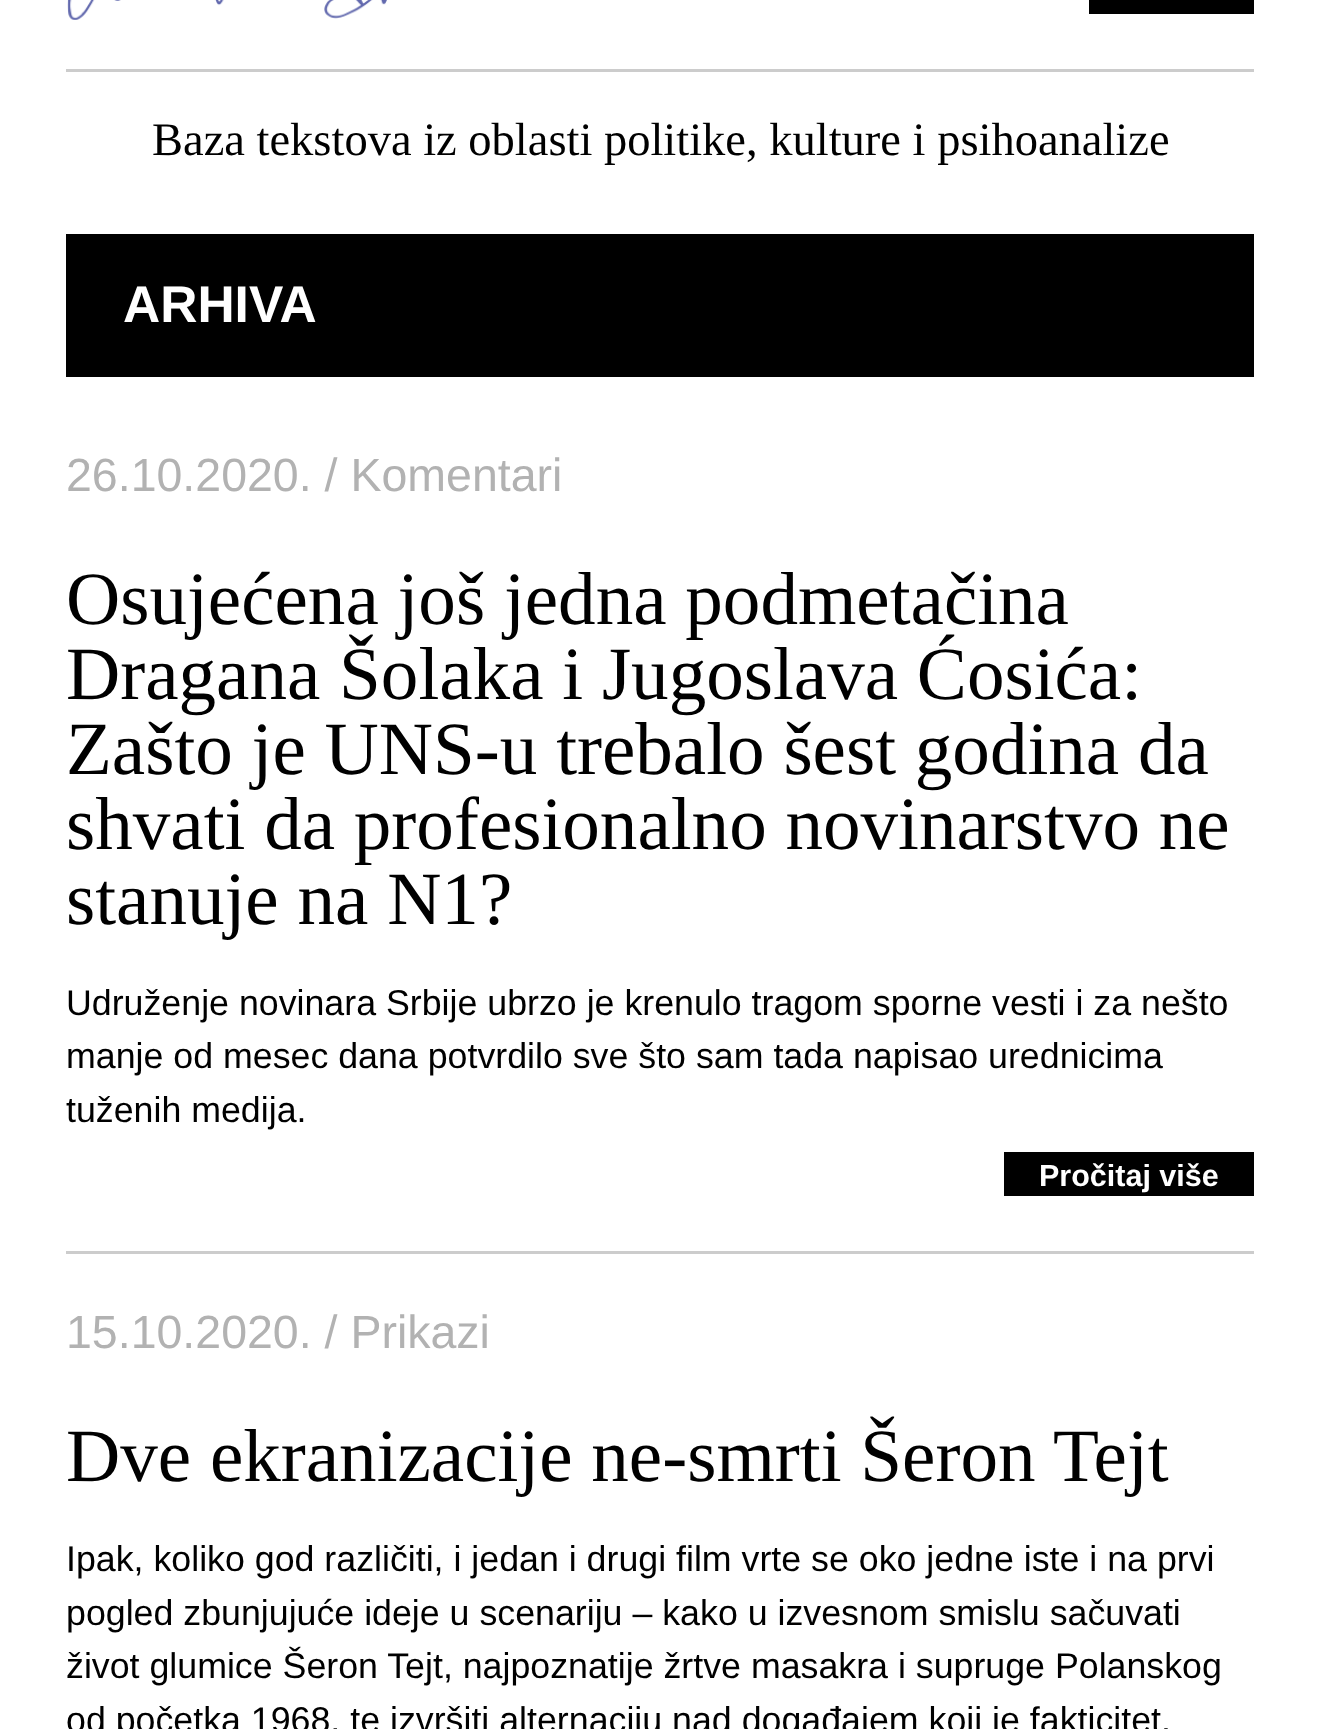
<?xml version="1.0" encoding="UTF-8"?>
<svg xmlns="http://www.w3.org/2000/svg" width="1320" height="1729">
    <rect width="100%" height="100%" fill="#FFFFFF"/>
    <rect x="66" y="69" width="1188" height="3" fill="#CCCCCC"/>
    <image x="67" y="0" width="320" height="20" href="img_01.png"/>
    <rect x="1089" y="0" width="165" height="14" fill="#000000"/>
    <text x="152" y="155" font-family="Liberation Serif" font-size="46.5" fill="#000000">Baza tekstova iz oblasti politike, kulture i psihoanalize</text>
    <rect x="66" y="234" width="1188" height="143" fill="#000000"/>
    <text x="123" y="322" font-family="Liberation Sans" font-size="51.5" font-weight="700" fill="#FFFFFF">ARHIVA</text>
    <rect x="66" y="1251" width="1188" height="3" fill="#CCCCCC"/>
    <text x="66" y="491" font-family="Liberation Sans" font-size="46.5" fill="#B2B2B2">26.10.2020. / Komentari</text>
    <text font-family="Liberation Serif" font-size="75.1" fill="#000000">
        <tspan x="66" y="624">Osujećena još jedna podmetačina</tspan>
        <tspan x="66" y="699">Dragana Šolaka i Jugoslava Ćosića:</tspan>
        <tspan x="66" y="774">Zašto je UNS-u trebalo šest godina da</tspan>
        <tspan x="66" y="849">shvati da profesionalno novinarstvo ne</tspan>
        <tspan x="66" y="924">stanuje na N1?</tspan>
    </text>
    <text font-family="Liberation Sans" font-size="35.75" fill="#000000">
        <tspan x="66" y="1015">Udruženje novinara Srbije ubrzo je krenulo tragom sporne vesti i za nešto</tspan>
        <tspan x="66" y="1068">manje od mesec dana potvrdilo sve što sam tada napisao urednicima</tspan>
        <tspan x="66" y="1122">tuženih medija.</tspan>
    </text>
    <rect x="1004" y="1152" width="250" height="44" fill="#000000"/>
    <text x="1039" y="1186" font-family="Liberation Sans" font-size="30.5" font-weight="700" fill="#FFFFFF">Pročitaj više</text>
    <text x="66" y="1348" font-family="Liberation Sans" font-size="46.5" fill="#B2B2B2">15.10.2020. / Prikazi</text>
    <text x="66" y="1481" font-family="Liberation Serif" font-size="75.1" fill="#000000">Dve ekranizacije ne-smrti Šeron Tejt</text>
    <text font-family="Liberation Sans" font-size="35.75" fill="#000000">
        <tspan x="66" y="1571">Ipak, koliko god različiti, i jedan i drugi film vrte se oko jedne iste i na prvi</tspan>
        <tspan x="66" y="1625">pogled zbunjujuće ideje u scenariju – kako u izvesnom smislu sačuvati</tspan>
        <tspan x="66" y="1678">život glumice Šeron Tejt, najpoznatije žrtve masakra i supruge Polanskog</tspan>
        <tspan x="66" y="1732">od početka 1968, te izvršiti alternaciju nad događajem koji je fakticitet.</tspan>
    </text>
</svg>
